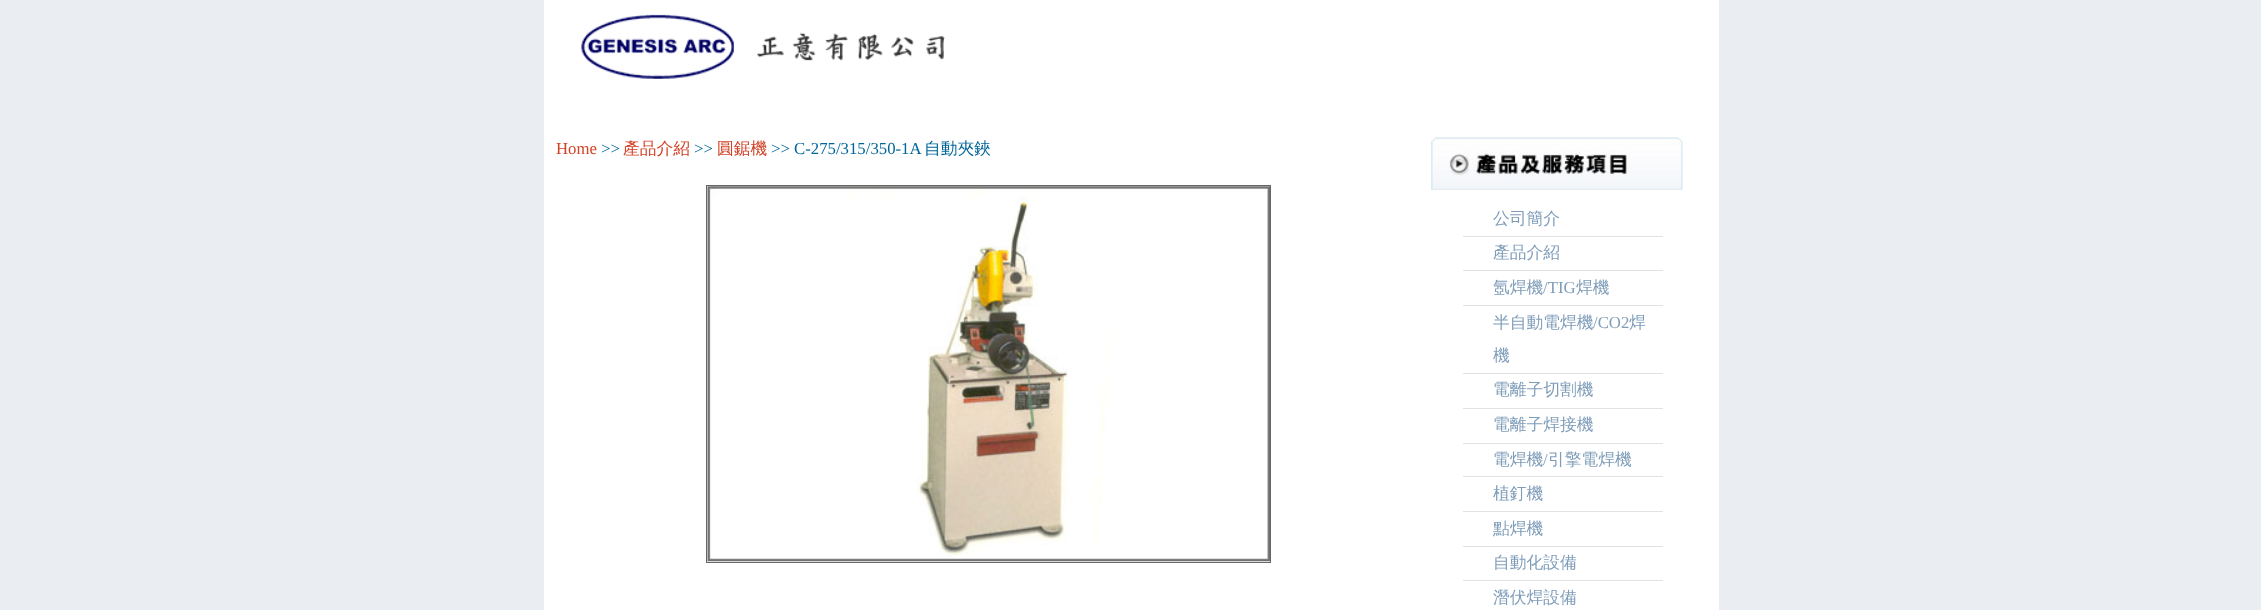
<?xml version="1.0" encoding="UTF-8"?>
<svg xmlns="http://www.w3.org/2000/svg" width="2261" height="610">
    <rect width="100%" height="100%" fill="#EAEDF2"/>
    <rect x="544" y="0" width="1175" height="610" fill="#FFFFFF"/>
    <image x="581" y="14" width="364" height="65" href="img_01.png"/>
    <text x="556" y="154" font-family="Liberation Serif" font-size="16.75" fill="#D14227">Home</text>
    <text x="601" y="154" font-family="Liberation Serif" font-size="16.75" fill="#006699">&gt;&gt;</text>
    <text x="623" y="154" font-family="WenQuanYi Zen Hei" font-size="16.75" font-weight="500" fill="#D14227">產品介紹</text>
    <text x="694" y="154" font-family="Liberation Serif" font-size="16.75" fill="#006699">&gt;&gt;</text>
    <text x="717" y="154" font-family="WenQuanYi Zen Hei" font-size="16.75" font-weight="500" fill="#D14227">圓鋸機</text>
    <text x="771" y="154" font-family="Liberation Serif" font-size="16.75" fill="#006699">&gt;&gt; C-275/315/350-1A</text>
    <text x="924" y="154" font-family="WenQuanYi Zen Hei" font-size="16.75" font-weight="500" fill="#006699">自動夾鋏</text>
    <rect x="706.5" y="185.5" width="564" height="377" fill="none" stroke="#666666"/>
    <image x="707" y="186" width="563" height="376" href="img_02.png"/>
    <image x="1431" y="137" width="252" height="53" href="img_03.png"/>
    <rect x="1463" y="236" width="200" height="1" fill="#E2E2E2"/>
    <text x="1493" y="224" font-family="WenQuanYi Zen Hei" font-size="16.75" font-weight="500" fill="#7F9DB9">公司簡介</text>
    <rect x="1463" y="270" width="200" height="1" fill="#E2E2E2"/>
    <text x="1493" y="258" font-family="WenQuanYi Zen Hei" font-size="16.75" font-weight="500" fill="#7F9DB9">產品介紹</text>
    <rect x="1463" y="305" width="200" height="1" fill="#E2E2E2"/>
    <text x="1493" y="293" font-family="WenQuanYi Zen Hei" font-size="16.75" font-weight="500" fill="#7F9DB9">氬焊機</text>
    <text x="1543" y="293" font-family="Liberation Serif" font-size="16.75" fill="#7F9DB9">/TIG</text>
    <text x="1576" y="293" font-family="WenQuanYi Zen Hei" font-size="16.75" font-weight="500" fill="#7F9DB9">焊機</text>
    <rect x="1463" y="373" width="200" height="1" fill="#E2E2E2"/>
    <text x="1493" y="328" font-family="WenQuanYi Zen Hei" font-size="16.75" font-weight="500" fill="#7F9DB9">半自動電焊機</text>
    <text x="1593" y="328" font-family="Liberation Serif" font-size="16.75" fill="#7F9DB9">/CO2</text>
    <text x="1629" y="328" font-family="WenQuanYi Zen Hei" font-size="16.75" font-weight="500" fill="#7F9DB9">焊</text>
    <text x="1493" y="361" font-family="WenQuanYi Zen Hei" font-size="16.75" font-weight="500" fill="#7F9DB9">機</text>
    <rect x="1463" y="408" width="200" height="1" fill="#E2E2E2"/>
    <text x="1493" y="395" font-family="WenQuanYi Zen Hei" font-size="16.75" font-weight="500" fill="#7F9DB9">電離子切割機</text>
    <rect x="1463" y="443" width="200" height="1" fill="#E2E2E2"/>
    <text x="1493" y="430" font-family="WenQuanYi Zen Hei" font-size="16.75" font-weight="500" fill="#7F9DB9">電離子焊接機</text>
    <rect x="1463" y="476" width="200" height="1" fill="#E2E2E2"/>
    <text x="1493" y="465" font-family="WenQuanYi Zen Hei" font-size="16.75" font-weight="500" fill="#7F9DB9">電焊機</text>
    <text x="1543" y="465" font-family="Liberation Serif" font-size="16.75" fill="#7F9DB9">/</text>
    <text x="1548" y="465" font-family="WenQuanYi Zen Hei" font-size="16.75" font-weight="500" fill="#7F9DB9">引擎電焊機</text>
    <rect x="1463" y="511" width="200" height="1" fill="#E2E2E2"/>
    <text x="1493" y="499" font-family="WenQuanYi Zen Hei" font-size="16.75" font-weight="500" fill="#7F9DB9">植釘機</text>
    <rect x="1463" y="546" width="200" height="1" fill="#E2E2E2"/>
    <text x="1493" y="534" font-family="WenQuanYi Zen Hei" font-size="16.75" font-weight="500" fill="#7F9DB9">點焊機</text>
    <rect x="1463" y="580" width="200" height="1" fill="#E2E2E2"/>
    <text x="1493" y="568" font-family="WenQuanYi Zen Hei" font-size="16.75" font-weight="500" fill="#7F9DB9">自動化設備</text>
    <text x="1493" y="603" font-family="WenQuanYi Zen Hei" font-size="16.75" font-weight="500" fill="#7F9DB9">潛伏焊設備</text>
</svg>
